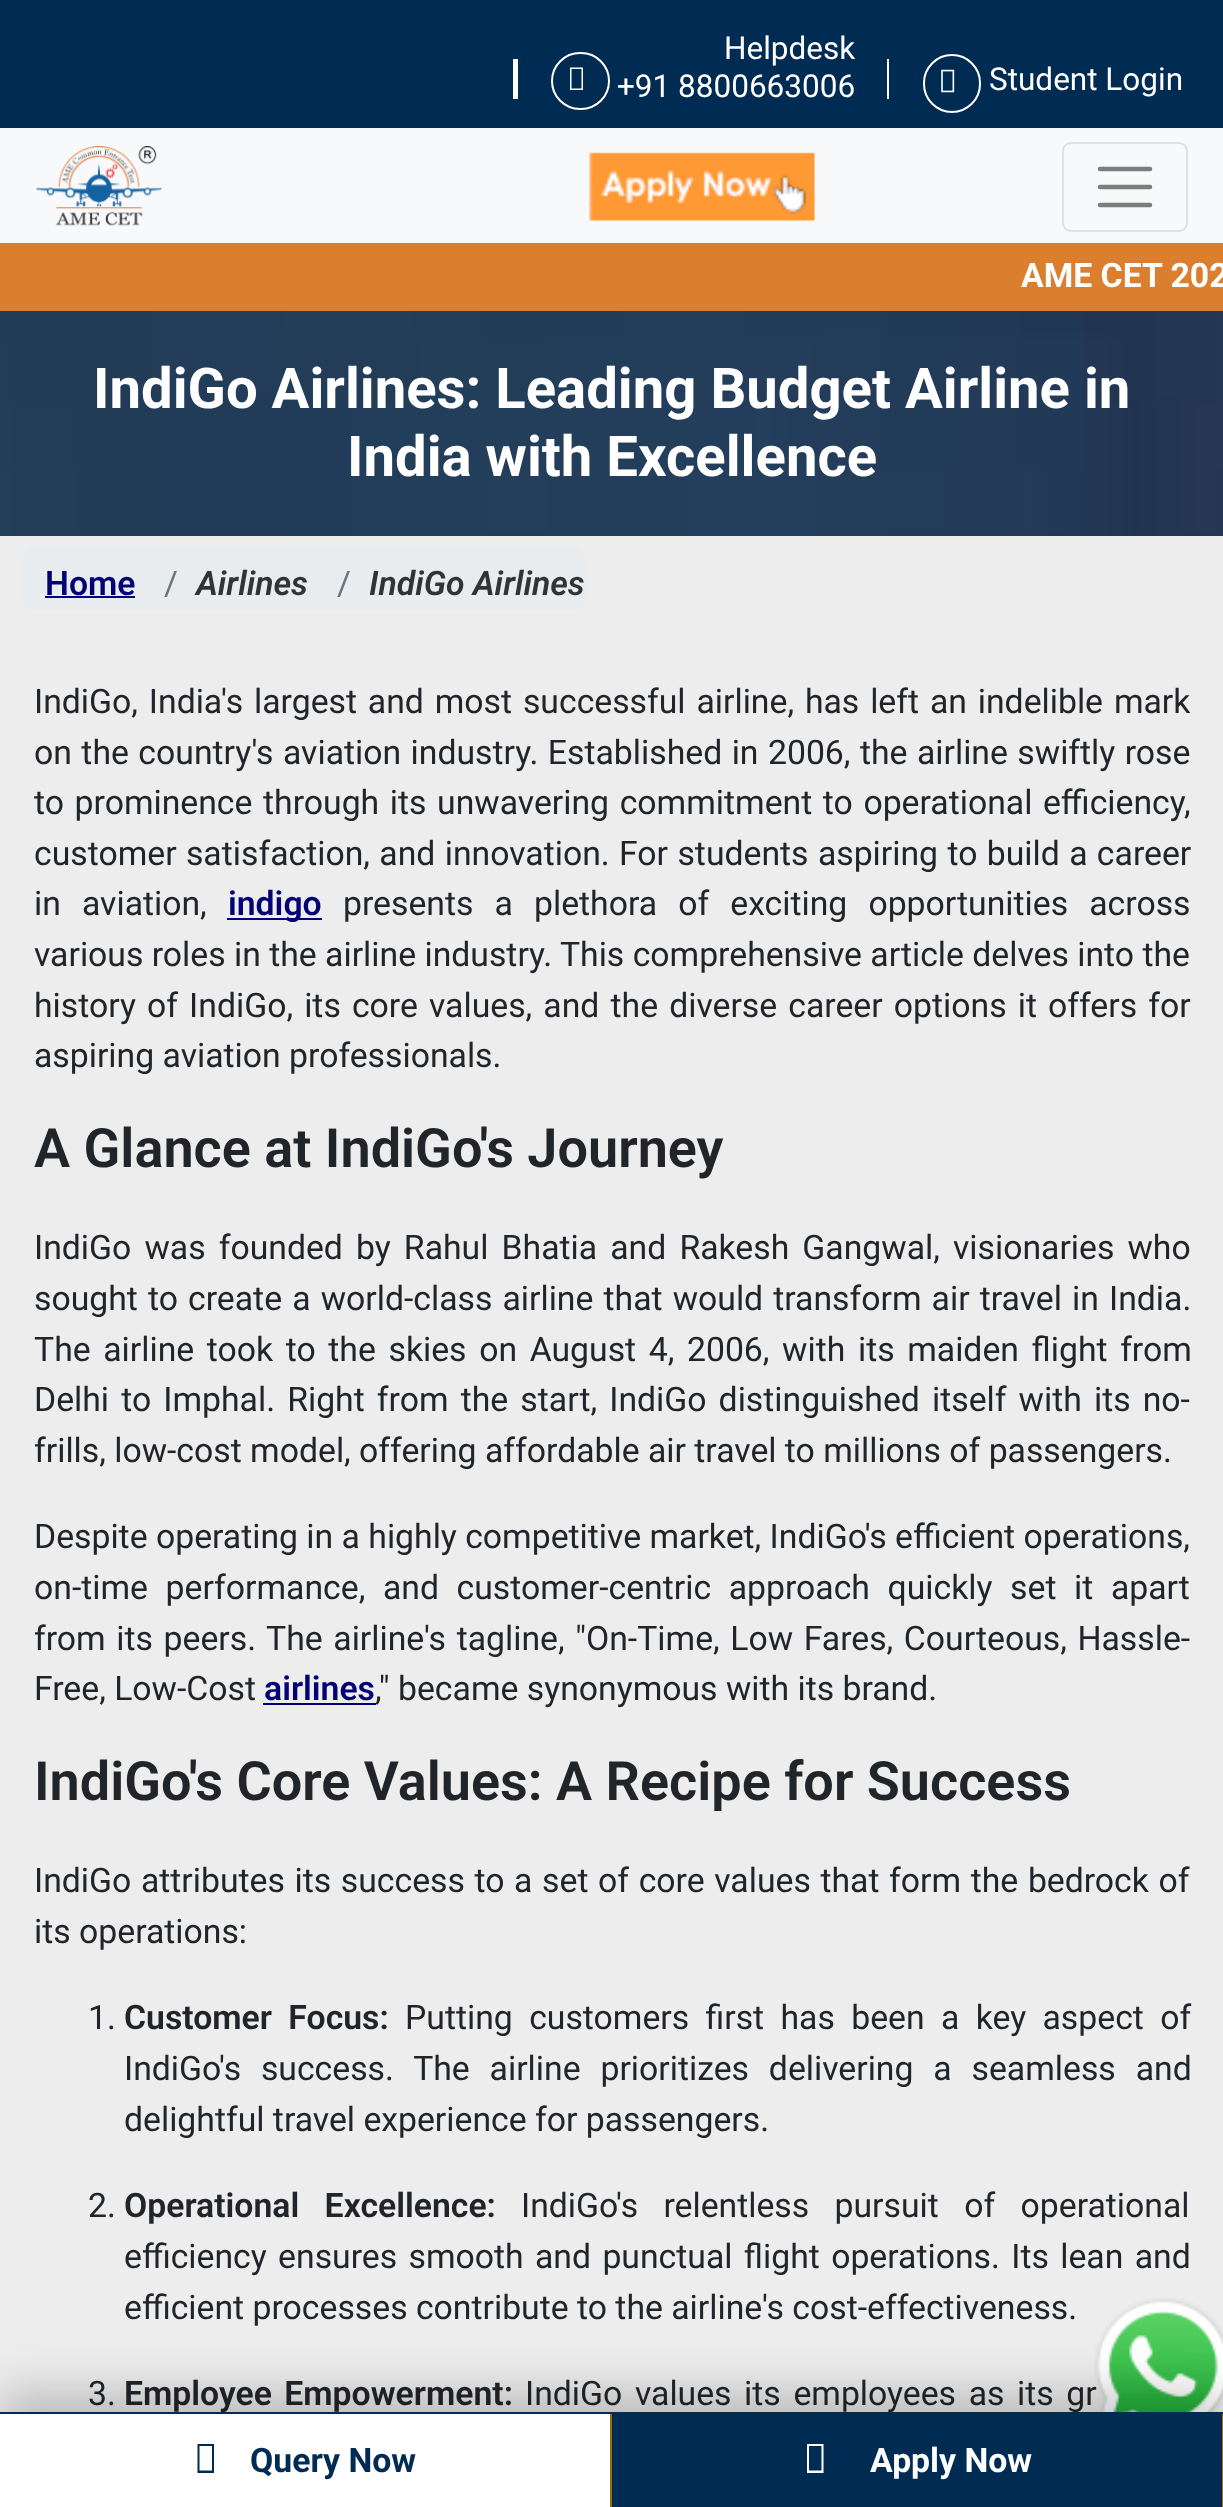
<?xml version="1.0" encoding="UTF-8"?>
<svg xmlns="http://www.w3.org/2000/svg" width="1223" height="2507">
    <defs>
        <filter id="blur1" x="-50%" y="-200%" width="200%" height="500%"><feGaussianBlur stdDeviation="22.5"/></filter>
    </defs>
    <rect width="100%" height="100%" fill="#EDEDED"/>
    <rect x="0" y="0" width="1223" height="128" fill="#002B53"/>
    <rect x="513" y="59" width="5" height="40" fill="#FFFFFF"/>
    <text x="724" y="59" font-family="Roboto" font-size="31.5" fill="#FFFFFF">Helpdesk</text>
    <rect x="552" y="53" width="57" height="56" rx="28" fill="none" stroke="#FFFFFF" stroke-width="2"/>
    <path d="M 570 90 V 67.5 H 583 V 90 Z M 571.5 88.5 H 581.5 V 69 H 571.5 Z" fill="#FFFFFF"/>
    <text x="617" y="97" font-family="Roboto" font-size="31.5" fill="#FFFFFF">+91 8800663006</text>
    <rect x="887" y="59" width="2" height="40" fill="#FFFFFF"/>
    <rect x="924" y="55" width="56" height="57" rx="28" fill="none" stroke="#FFFFFF" stroke-width="2"/>
    <image x="941" y="69" width="14" height="24" href="img_01.png"/>
    <text x="989" y="90" font-family="Roboto" font-size="31.5" fill="#FFFFFF">Student Login</text>
    <rect x="0" y="128" width="1223" height="115" fill="#F8F9FA"/>
    <image x="36" y="146" width="126" height="80" href="img_02.png"/>
    <image x="589" y="152" width="226" height="70" href="img_03.png"/>
    <rect x="1063" y="143" width="124" height="88" rx="8" fill="none" stroke="#DFE0E1" stroke-width="2"/>
    <path d="M 1100 169 H 1150 M 1100 187 H 1150 M 1100 205 H 1150" fill="none" stroke="#7C7D7D" stroke-width="4.5" stroke-linecap="round"/>
    <rect x="0" y="243" width="1223" height="68" fill="#DB7E2D"/>
    <text x="1021" y="287" font-family="Roboto" font-size="33.75" font-weight="700" fill="#FFFFFF">AME CET 202</text>
    <image x="0" y="311" width="1223" height="225" href="img_04.png"/>
    <text x="93" y="408" font-family="Roboto" font-size="56.25" font-weight="700" fill="#FFFFFF">IndiGo Airlines: Leading Budget Airline in</text>
    <text x="347" y="476" font-family="Roboto" font-size="56.25" font-weight="700" fill="#FFFFFF">India with Excellence</text>
    <rect x="23" y="547" width="562" height="63" rx="9" fill="#E9ECEF"/>
    <text x="45" y="595" font-family="Roboto" font-size="33.75" font-weight="600" fill="#020274">Home</text>
    <rect x="45" y="596" width="90" height="2" fill="#020274"/>
    <text x="164" y="595" font-family="Roboto" font-size="33.75" fill="#6C757D">/</text>
    <text x="196" y="595" font-family="Roboto" font-size="33.75" font-weight="600" font-style="italic" fill="#333333">Airlines</text>
    <text x="337" y="595" font-family="Roboto" font-size="33.75" fill="#6C757D">/</text>
    <text x="369" y="595" font-family="Roboto" font-size="33.75" font-weight="600" font-style="italic" fill="#333333">IndiGo Airlines</text>
    <text font-family="Roboto" font-size="33.75" fill="#212529">
        <tspan x="34" y="713" word-spacing="2.5">IndiGo, India's largest and most successful airline, has left an indelible mark</tspan>
        <tspan x="34" y="764" word-spacing="1.1">on the country's aviation industry. Established in 2006, the airline swiftly rose</tspan>
        <tspan x="34" y="814" word-spacing="2.25">to prominence through its unwavering commitment to operational efficiency,</tspan>
        <tspan x="34" y="865" word-spacing="1">customer satisfaction, and innovation. For students aspiring to build a career</tspan>
        <tspan x="34" y="915" word-spacing="12.75">in aviation,</tspan>
    </text>
    <rect x="227" y="918" width="95" height="2" fill="#020274"/>
    <text x="228" y="915" font-family="Roboto" font-size="33.75" font-weight="600" fill="#020274">indigo</text>
    <text x="343" y="915" word-spacing="12.75" font-family="Roboto" font-size="33.75" fill="#212529">presents a plethora of exciting opportunities across</text>
    <text font-family="Roboto" font-size="33.75" fill="#212529">
        <tspan x="34" y="966">various roles in the airline industry. This comprehensive article delves into the</tspan>
        <tspan x="34" y="1017" word-spacing="2.75">history of IndiGo, its core values, and the diverse career options it offers for</tspan>
        <tspan x="34" y="1067">aspiring aviation professionals.</tspan>
    </text>
    <text x="34" y="1167" font-family="'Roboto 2'" font-size="54" font-weight="600" fill="#212529">A Glance at IndiGo's Journey</text>
    <text font-family="Roboto" font-size="33.75" fill="#212529">
        <tspan x="34" y="1259" word-spacing="4.75">IndiGo was founded by Rahul Bhatia and Rakesh Gangwal, visionaries who</tspan>
        <tspan x="34" y="1310" word-spacing="1.75">sought to create a world-class airline that would transform air travel in India.</tspan>
        <tspan x="34" y="1361" word-spacing="4.25">The airline took to the skies on August 4, 2006, with its maiden flight from</tspan>
        <tspan x="34" y="1411" word-spacing="3.75">Delhi to Imphal. Right from the start, IndiGo distinguished itself with its no-</tspan>
        <tspan x="34" y="1462">frills, low-cost model, offering affordable air travel to millions of passengers.</tspan>
    </text>
    <text font-family="Roboto" font-size="33.75" fill="#212529">
        <tspan x="34" y="1548">Despite operating in a highly competitive market, IndiGo's efficient operations,</tspan>
        <tspan x="34" y="1599" word-spacing="9.25">on-time performance, and customer-centric approach quickly set it apart</tspan>
        <tspan x="34" y="1650" word-spacing="2.25">from its peers. The airline's tagline, "On-Time, Low Fares, Courteous, Hassle-</tspan>
        <tspan x="34" y="1700">Free, Low-Cost</tspan>
    </text>
    <text x="264" y="1700" font-family="Roboto" font-size="33.75" font-weight="600" fill="#020274">airlines</text>
    <rect x="263" y="1703" width="113" height="2" fill="#020274"/>
    <text x="375" y="1700" font-family="Roboto" font-size="33.75" fill="#212529">," became synonymous with its brand.</text>
    <text x="34" y="1800" font-family="'Roboto 2'" font-size="54" font-weight="600" fill="#212529">IndiGo's Core Values: A Recipe for Success</text>
    <text font-family="Roboto" font-size="33.75" fill="#212529">
        <tspan x="34" y="1892" word-spacing="1.25">IndiGo attributes its success to a set of core values that form the bedrock of</tspan>
        <tspan x="34" y="1943">its operations:</tspan>
    </text>
    <text x="88" y="2029" font-family="Roboto" font-size="33.75" fill="#212529">1.</text>
    <text x="124" y="2029" word-spacing="8" font-family="'Roboto 2'" font-size="33.75" font-weight="600" fill="#212529">Customer Focus:</text>
    <text x="405" y="2029" word-spacing="8" font-family="Roboto" font-size="33.75" fill="#212529">Putting customers first has been a key aspect of</text>
    <text font-family="Roboto" font-size="33.75" fill="#212529">
        <tspan x="124" y="2080" word-spacing="11.5">IndiGo's success. The airline prioritizes delivering a seamless and</tspan>
        <tspan x="124" y="2131">delightful travel experience for passengers.</tspan>
    </text>
    <text x="88" y="2217" font-family="Roboto" font-size="33.75" fill="#212529">2.</text>
    <text x="124" y="2217" word-spacing="17" font-family="'Roboto 2'" font-size="33.75" font-weight="600" fill="#212529">Operational Excellence:</text>
    <text x="521" y="2217" word-spacing="17" font-family="Roboto" font-size="33.75" fill="#212529">IndiGo's relentless pursuit of operational</text>
    <text font-family="Roboto" font-size="33.75" fill="#212529">
        <tspan x="124" y="2268" word-spacing="3">efficiency ensures smooth and punctual flight operations. Its lean and</tspan>
        <tspan x="124" y="2319">efficient processes contribute to the airline's cost-effectiveness.</tspan>
    </text>
    <text x="88" y="2405" font-family="Roboto" font-size="33.75" fill="#212529">3.</text>
    <text x="124" y="2405" word-spacing="4" font-family="'Roboto 2'" font-size="33.75" font-weight="600" fill="#212529">Employee Empowerment:</text>
    <text x="525" y="2405" word-spacing="4.25" font-family="Roboto" font-size="33.75" fill="#212529">IndiGo values its employees as its gr</text>
    <image x="1094" y="2298" width="129" height="114" href="img_05.png"/>
    <rect x="0" y="2390" width="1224" height="96" fill="#000000" fill-opacity="0.2" filter="url(#blur1)"/>
    <rect x="0" y="2414" width="610" height="93" fill="#FFFFFF"/>
    <rect x="0" y="2412" width="1223" height="2" fill="#002B53"/>
    <rect x="610" y="2414" width="2" height="93" fill="#986D0F"/>
    <path d="M 197.5 2473 V 2444 H 214 V 2473 Z M 199.5 2470.5 H 212 V 2446 H 199.5 Z" fill="#002B53"/>
    <text x="250" y="2472" font-family="Roboto" font-size="33.75" font-weight="700" fill="#002B53">Query Now</text>
    <rect x="612" y="2414" width="610" height="93" fill="#002B53"/>
    <rect x="1222" y="2414" width="1" height="93" fill="#986D0F"/>
    <path d="M 807 2473 V 2444 H 823.5 V 2473 Z M 809 2470.5 H 821.5 V 2446 H 809 Z" fill="#FFFFFF"/>
    <text x="870" y="2472" font-family="Roboto" font-size="33.75" font-weight="700" fill="#FFFFFF">Apply Now</text>
</svg>
